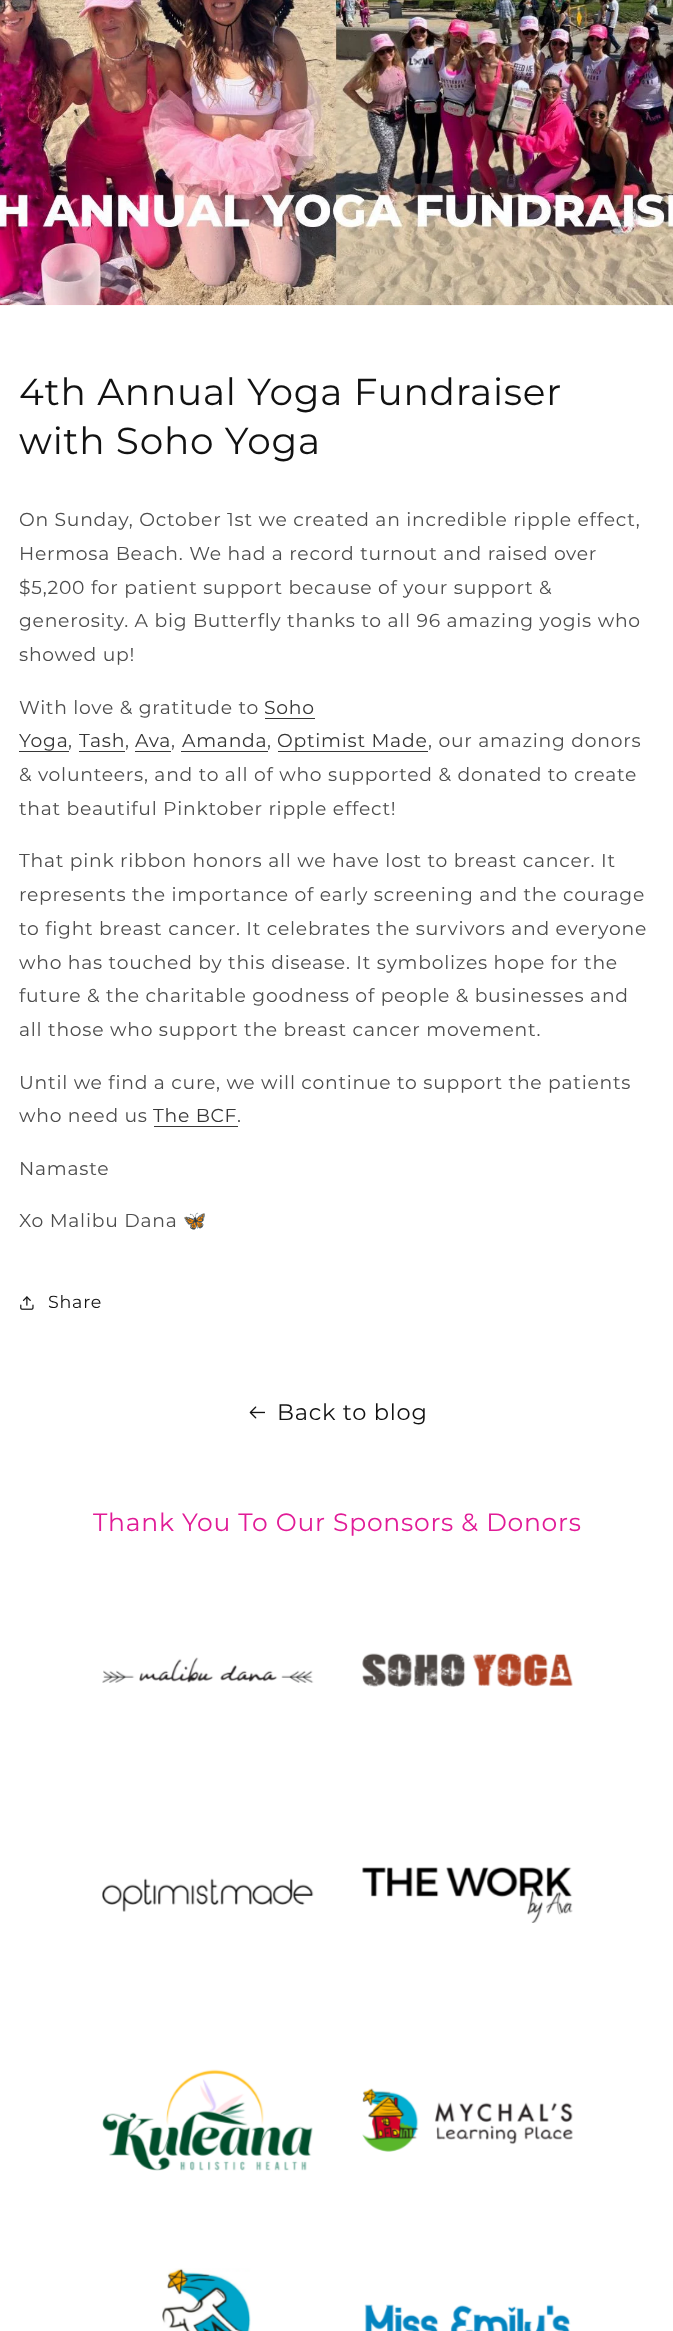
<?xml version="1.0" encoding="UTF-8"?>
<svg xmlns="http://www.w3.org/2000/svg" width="673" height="2331">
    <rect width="100%" height="100%" fill="#FFFFFF"/>
    <image x="0" y="0" width="673" height="306" href="img_01.png"/>
    <text font-family="Montserrat" font-size="37.5" font-weight="100" letter-spacing="0.75" fill="#121212">
        <tspan x="19" y="405">4th Annual Yoga Fundraiser</tspan>
        <tspan x="19" y="454">with Soho Yoga</tspan>
    </text>
    <text font-family="Montserrat" font-size="18.75" font-weight="100" letter-spacing="0.75" fill="#4D4D4D">
        <tspan x="19" y="526">On Sunday, October 1st we created an incredible ripple effect,</tspan>
        <tspan x="19" y="560">Hermosa Beach. We had a record turnout and raised over</tspan>
        <tspan x="19" y="594">$5,200 for patient support because of your support &amp;</tspan>
        <tspan x="19" y="627">generosity. A big Butterfly thanks to all 96 amazing yogis who</tspan>
        <tspan x="19" y="661">showed up!</tspan>
    </text>
    <text x="19" y="714" font-family="Montserrat" font-size="18.75" font-weight="100" letter-spacing="0.75" fill="#4D4D4D">With love &amp; gratitude to</text>
    <text x="264" y="714" font-family="Montserrat" font-size="18.75" font-weight="100" letter-spacing="0.75" fill="#363636">Soho</text>
    <rect x="265" y="718" width="50" height="1" fill="#363636"/>
    <text x="19" y="747" font-family="Montserrat" font-size="18.75" font-weight="100" letter-spacing="0.75" fill="#363636">Yoga</text>
    <rect x="19" y="751" width="50" height="1" fill="#363636"/>
    <text x="68" y="747" font-family="Montserrat" font-size="18.75" font-weight="100" letter-spacing="0.75" fill="#4D4D4D">,</text>
    <text x="79" y="747" font-family="Montserrat" font-size="18.75" font-weight="100" letter-spacing="0.75" fill="#363636">Tash</text>
    <rect x="79" y="751" width="46" height="1" fill="#363636"/>
    <text x="125" y="747" font-family="Montserrat" font-size="18.75" font-weight="100" letter-spacing="0.75" fill="#4D4D4D">,</text>
    <text x="135" y="747" font-family="Montserrat" font-size="18.75" font-weight="100" letter-spacing="0.75" fill="#363636">Ava</text>
    <rect x="135" y="751" width="36" height="1" fill="#363636"/>
    <text x="171" y="747" font-family="Montserrat" font-size="18.75" font-weight="100" letter-spacing="0.75" fill="#4D4D4D">,</text>
    <text x="182" y="747" font-family="Montserrat" font-size="18.75" font-weight="100" letter-spacing="0.75" fill="#363636">Amanda</text>
    <rect x="181" y="751" width="87" height="1" fill="#363636"/>
    <text x="267" y="747" font-family="Montserrat" font-size="18.75" font-weight="100" letter-spacing="0.75" fill="#4D4D4D">,</text>
    <text x="277" y="747" font-family="Montserrat" font-size="18.75" font-weight="100" letter-spacing="0.75" fill="#363636">Optimist Made</text>
    <rect x="278" y="751" width="150" height="1" fill="#363636"/>
    <text x="428" y="747" font-family="Montserrat" font-size="18.75" font-weight="100" letter-spacing="0.75" fill="#4D4D4D">, our amazing donors</text>
    <text font-family="Montserrat" font-size="18.75" font-weight="100" letter-spacing="0.75" fill="#4D4D4D">
        <tspan x="19" y="781">&amp; volunteers, and to all of who supported &amp; donated to create</tspan>
        <tspan x="19" y="815">that beautiful Pinktober ripple effect!</tspan>
    </text>
    <text font-family="Montserrat" font-size="18.75" font-weight="100" letter-spacing="0.75" fill="#4D4D4D">
        <tspan x="19" y="867">That pink ribbon honors all we have lost to breast cancer. It</tspan>
        <tspan x="19" y="901">represents the importance of early screening and the courage</tspan>
        <tspan x="19" y="935">to fight breast cancer. It celebrates the survivors and everyone</tspan>
        <tspan x="19" y="969">who has touched by this disease. It symbolizes hope for the</tspan>
        <tspan x="19" y="1002">future &amp; the charitable goodness of people &amp; businesses and</tspan>
        <tspan x="19" y="1036">all those who support the breast cancer movement.</tspan>
    </text>
    <text font-family="Montserrat" font-size="18.75" font-weight="100" letter-spacing="0.75" fill="#4D4D4D">
        <tspan x="19" y="1089">Until we find a cure, we will continue to support the patients</tspan>
        <tspan x="19" y="1122">who need us</tspan>
    </text>
    <text x="153" y="1122" font-family="Montserrat" font-size="18.75" font-weight="100" letter-spacing="0.75" fill="#363636">The BCF</text>
    <rect x="154" y="1126" width="84" height="1" fill="#363636"/>
    <text x="237" y="1122" font-family="Montserrat" font-size="18.75" font-weight="100" letter-spacing="0.75" fill="#4D4D4D">.</text>
    <text x="19" y="1175" font-family="Montserrat" font-size="18.75" font-weight="100" letter-spacing="0.75" fill="#4D4D4D">Namaste</text>
    <text x="19" y="1227" font-family="Montserrat" font-size="18.75" font-weight="100" letter-spacing="0.75" fill="#4D4D4D">Xo Malibu Dana</text>
    <text x="183" y="1227" font-family="Noto Color Emoji" font-size="18.75" letter-spacing="0.75" fill="#4D4D4D">🦋</text>
    <image x="20" y="1296" width="14" height="14" href="img_02.png"/>
    <text x="48" y="1308" font-family="Montserrat" font-size="17.5" font-weight="100" letter-spacing="0.75" fill="#121212">Share</text>
    <image x="249" y="1406" width="16" height="13" href="img_03.png"/>
    <text x="277" y="1420" font-family="Montserrat" font-size="22.5" font-weight="100" letter-spacing="0.75" fill="#121212">Back to blog</text>
    <text x="93" y="1531" font-family="Montserrat" font-size="25" font-weight="100" letter-spacing="0.75" fill="#E11B97">Thank You To Our Sponsors &amp; Donors</text>
    <image x="102" y="1657" width="212" height="26" href="img_04.png"/>
    <image x="362" y="1653" width="211" height="34" href="img_05.png"/>
    <image x="102" y="1878" width="212" height="34" href="img_06.png"/>
    <image x="362" y="1867" width="211" height="56" href="img_07.png"/>
    <image x="102" y="2069" width="211" height="102" href="img_08.png"/>
    <image x="362" y="2088" width="211" height="64" href="img_09.png"/>
    <image x="162" y="2268" width="89" height="63" href="img_10.png"/>
    <image x="364" y="2304" width="207" height="27" href="img_11.png"/>
</svg>
